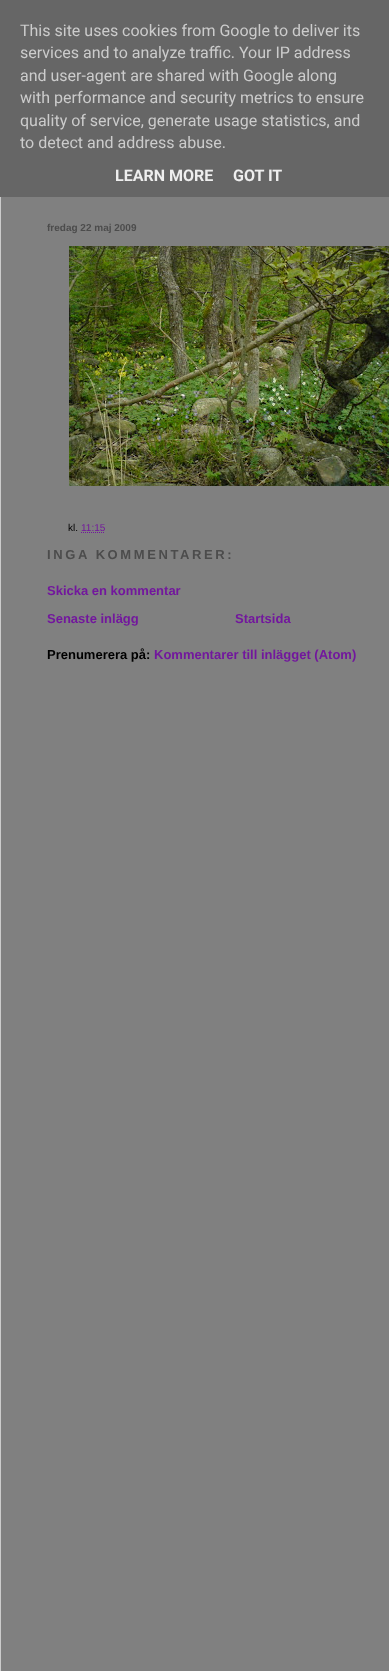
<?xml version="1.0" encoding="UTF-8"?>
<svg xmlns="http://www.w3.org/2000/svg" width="389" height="1671">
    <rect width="100%" height="100%" fill="#808080"/>
    <rect x="0" y="0" width="389" height="197" fill="#666666"/>
    <text font-family="Roboto" font-size="16" fill="#CCCCCC">
        <tspan x="20" y="36">This site uses cookies from Google to deliver its</tspan>
        <tspan x="20" y="58">services and to analyze traffic. Your IP address</tspan>
        <tspan x="20" y="81">and user-agent are shared with Google along</tspan>
        <tspan x="20" y="103">with performance and security metrics to ensure</tspan>
        <tspan x="20" y="126">quality of service, generate usage statistics, and</tspan>
        <tspan x="20" y="148">to detect and address abuse.</tspan>
    </text>
    <text x="115" y="181" font-family="Roboto" font-size="16" font-weight="700" fill="#EEEEEE">LEARN MORE</text>
    <text x="233" y="181" font-family="Roboto" font-size="16" font-weight="700" fill="#EEEEEE">GOT IT</text>
    <rect x="0" y="197" width="1" height="1474" fill="#CCCCCC"/>
    <text x="47" y="231" font-family="Liberation Sans" font-size="10" font-weight="700" fill="#4C4C4C">fredag 22 maj 2009</text>
    <image x="69" y="246" width="320" height="240" href="img_01.png"/>
    <text x="68" y="531" font-family="Liberation Sans" font-size="10" fill="#000000">kl.</text>
    <text x="81" y="531" font-family="Liberation Sans" font-size="10" fill="#72179D">11:15</text>
    <path d="M 81 532.5 H 105" fill="none" stroke="#72179D" stroke-dasharray="1 1"/>
    <text x="47" y="559" font-family="Liberation Sans" font-size="13" font-weight="700" letter-spacing="2.6" fill="#4C4C4C">INGA KOMMENTARER:</text>
    <text x="47" y="595" font-family="Liberation Sans" font-size="13" font-weight="700" fill="#72179D">Skicka en kommentar</text>
    <text x="47" y="623" font-family="Liberation Sans" font-size="13" font-weight="700" fill="#72179D">Senaste inlägg</text>
    <text x="235" y="623" font-family="Liberation Sans" font-size="13" font-weight="700" fill="#72179D">Startsida</text>
    <text x="47" y="659" font-family="Liberation Sans" font-size="13" font-weight="700" fill="#000000">Prenumerera på:</text>
    <text x="154" y="659" font-family="Liberation Sans" font-size="13" font-weight="700" fill="#72179D">Kommentarer till inlägget (Atom)</text>
</svg>
